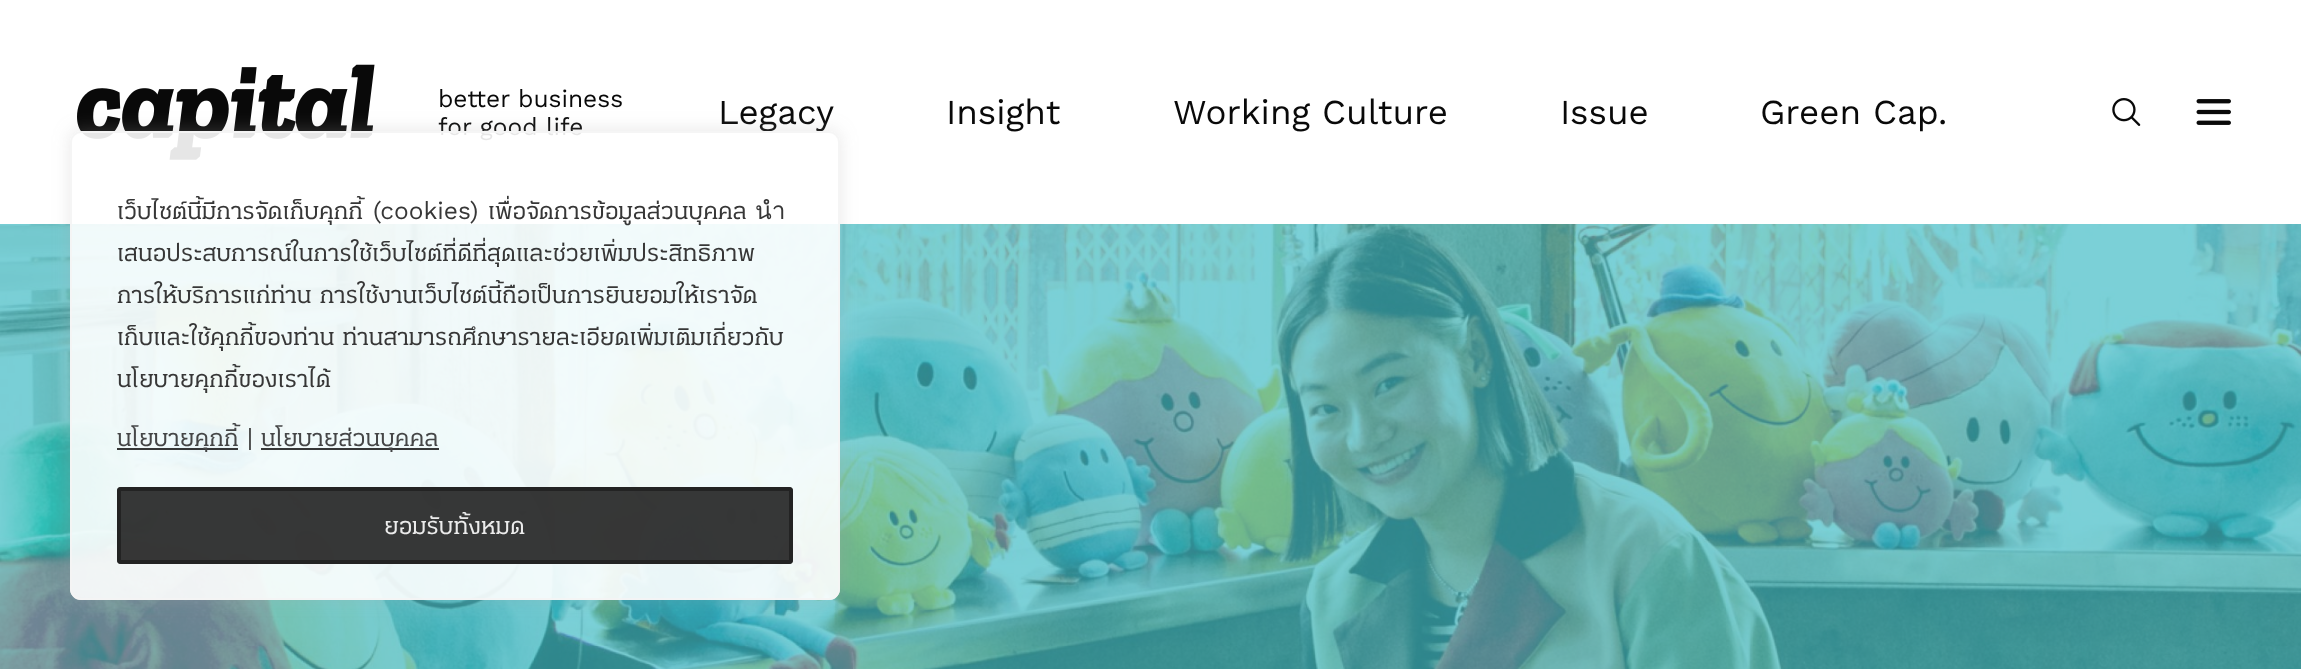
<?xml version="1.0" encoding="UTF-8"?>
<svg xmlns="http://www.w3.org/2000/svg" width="2301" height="669">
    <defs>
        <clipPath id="clip1"><path d="M 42 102 H 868 V 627 H 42 Z M 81 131 H 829 C 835 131 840 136 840 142 V 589 C 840 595 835 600 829 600 H 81 C 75 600 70 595 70 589 V 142 C 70 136 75 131 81 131 Z" clip-rule="evenodd"/></clipPath>
        <filter id="blur1" x="-50%" y="-200%" width="200%" height="500%"><feGaussianBlur stdDeviation="9"/></filter>
    </defs>
    <rect width="100%" height="100%" fill="#FFFFFF"/>
    <image x="77" y="64" width="298" height="96" href="img_01.png"/>
    <text font-family="Work Sans" font-size="24.5" fill="#090909">
        <tspan x="438" y="107">better business</tspan>
        <tspan x="438" y="135">for good life</tspan>
    </text>
    <text x="718" y="124" font-family="Work Sans" font-size="35" fill="#090909">Legacy</text>
    <text x="946" y="124" font-family="Work Sans" font-size="35" fill="#090909">Insight</text>
    <text x="1173" y="124" font-family="Work Sans" font-size="35" fill="#090909">Working Culture</text>
    <text x="1560" y="124" font-family="Work Sans" font-size="35" fill="#090909">Issue</text>
    <text x="1760" y="124" font-family="Work Sans" font-size="35" fill="#090909">Green Cap.</text>
    <image x="2112" y="98" width="29" height="28" href="img_02.png"/>
    <image x="2196" y="99" width="35" height="26" href="img_03.png"/>
    <image x="0" y="224" width="2301" height="445" href="img_04.png"/>
    <g clip-path="url(#clip1)">
        <rect x="70" y="130" width="770" height="469" rx="11" fill="#ACABAB" fill-opacity="0.27" filter="url(#blur1)"/>
    </g>
    <rect x="70" y="131" width="770" height="469" rx="11" fill="#FFFFFF" fill-opacity="0.9"/>
    <rect x="71" y="132" width="768" height="467" rx="10" fill="none" stroke="#F4F4F4" stroke-opacity="0.9" stroke-width="2"/>
    <text x="117" y="219" font-family="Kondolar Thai" font-size="24.5" fill="#373737">เว็บไซต์นี้มีการจัดเก็บคุกกี้</text>
    <text x="373" y="219" font-family="Work Sans" font-size="24.5" fill="#373737">(cookies)</text>
    <text x="488" y="219" word-spacing="2" font-family="Kondolar Thai" font-size="24.5" fill="#373737">เพื่อจัดการข้อมูลส่วนบุคคล นำ</text>
    <text font-family="Kondolar Thai" font-size="24.5" fill="#373737">
        <tspan x="117" y="261">เสนอประสบการณ์ในการใช้เว็บไซต์ที่ดีที่สุดและช่วยเพิ่มประสิทธิภาพ</tspan>
        <tspan x="117" y="303" word-spacing="2">การให้บริการแก่ท่าน การใช้งานเว็บไซต์นี้ถือเป็นการยินยอมให้เราจัด</tspan>
        <tspan x="117" y="345" word-spacing="2">เก็บและใช้คุกกี้ของท่าน ท่านสามารถศึกษารายละเอียดเพิ่มเติมเกี่ยวกับ</tspan>
        <tspan x="117" y="387">นโยบายคุกกี้ของเราได้</tspan>
    </text>
    <rect x="117" y="448" width="121" height="2" fill="#212121" fill-opacity="0.9"/>
    <text x="117" y="446" font-family="Kondolar Thai" font-size="24.5" fill="#454647">นโยบายคุกกี้</text>
    <text x="247" y="446" font-family="Work Sans" font-size="24.5" fill="#373737">|</text>
    <rect x="261" y="448" width="178" height="2" fill="#212121" fill-opacity="0.9"/>
    <text x="261" y="446" font-family="Kondolar Thai" font-size="24.5" fill="#454647">นโยบายส่วนบุคคล</text>
    <rect x="117" y="487" width="676" height="77" rx="4" fill="#212121" fill-opacity="0.9"/>
    <rect x="119" y="489" width="672" height="73" rx="2" fill="none" stroke="#212121" stroke-opacity="0.9" stroke-width="4"/>
    <text x="384" y="534" font-family="Kondolar Thai" font-size="24.5" fill="#EBEBEB">ยอมรับทั้งหมด</text>
</svg>
